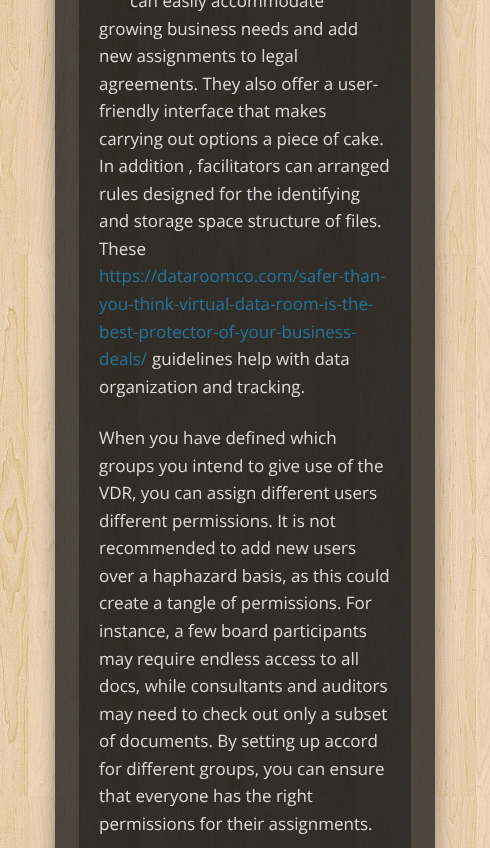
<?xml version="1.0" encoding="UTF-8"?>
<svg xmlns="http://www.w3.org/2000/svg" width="490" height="848">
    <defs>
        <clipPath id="clip1"><path d="M 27 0 H 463 V 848 H 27 Z M 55 -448 H 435 V 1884 H 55 Z" clip-rule="evenodd"/></clipPath>
        <filter id="blur1" x="-50%" y="-200%" width="200%" height="500%"><feGaussianBlur stdDeviation="9"/></filter>
    </defs>
    <rect width="100%" height="100%" fill="#FFFFFF"/>
    <image x="0" y="0" width="490" height="848" href="img_01.png"/>
    <g clip-path="url(#clip1)">
        <rect x="55" y="-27" width="380" height="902" fill="#000000" fill-opacity="0.4" filter="url(#blur1)"/>
    </g>
    <rect x="55" y="0" width="380" height="848" fill="#0A0A0A" fill-opacity="0.7"/>
    <rect x="79" y="0" width="332" height="848" fill="#0A0A0A" fill-opacity="0.4"/>
    <text x="130" y="7" font-family="Open Sans" font-size="17" fill="#DBDBDB">can easily accommodate</text>
    <text font-family="Open Sans" font-size="17" fill="#DBDBDB">
        <tspan x="99" y="35">growing business needs and add</tspan>
        <tspan x="99" y="62">new assignments to legal</tspan>
        <tspan x="99" y="90">agreements. They also offer a user-</tspan>
        <tspan x="99" y="117">friendly interface that makes</tspan>
        <tspan x="99" y="145">carrying out options a piece of cake.</tspan>
        <tspan x="99" y="172">In addition , facilitators can arranged</tspan>
        <tspan x="99" y="200">rules designed for the identifying</tspan>
        <tspan x="99" y="227">and storage space structure of files.</tspan>
        <tspan x="99" y="255">These</tspan>
    </text>
    <text font-family="Open Sans" font-size="17" fill="#21759B">
        <tspan x="99" y="282">https://dataroomco.com/safer-than-</tspan>
        <tspan x="99" y="310">you-think-virtual-data-room-is-the-</tspan>
        <tspan x="99" y="338">best-protector-of-your-business-</tspan>
        <tspan x="99" y="365">deals/</tspan>
    </text>
    <text x="152" y="365" font-family="Open Sans" font-size="17" fill="#DBDBDB">guidelines help with data</text>
    <text x="99" y="393" font-family="Open Sans" font-size="17" fill="#DBDBDB">organization and tracking.</text>
    <text font-family="Open Sans" font-size="17" fill="#DBDBDB">
        <tspan x="99" y="444">When you have defined which</tspan>
        <tspan x="99" y="472">groups you intend to give use of the</tspan>
        <tspan x="99" y="499">VDR, you can assign different users</tspan>
        <tspan x="99" y="527">different permissions. It is not</tspan>
        <tspan x="99" y="554">recommended to add new users</tspan>
        <tspan x="99" y="582">over a haphazard basis, as this could</tspan>
        <tspan x="99" y="609">create a tangle of permissions. For</tspan>
        <tspan x="99" y="637">instance, a few board participants</tspan>
        <tspan x="99" y="665">may require endless access to all</tspan>
        <tspan x="99" y="692">docs, while consultants and auditors</tspan>
        <tspan x="99" y="720">may need to check out only a subset</tspan>
        <tspan x="99" y="747">of documents. By setting up accord</tspan>
        <tspan x="99" y="775">for different groups, you can ensure</tspan>
        <tspan x="99" y="802">that everyone has the right</tspan>
        <tspan x="99" y="830">permissions for their assignments.</tspan>
    </text>
</svg>
